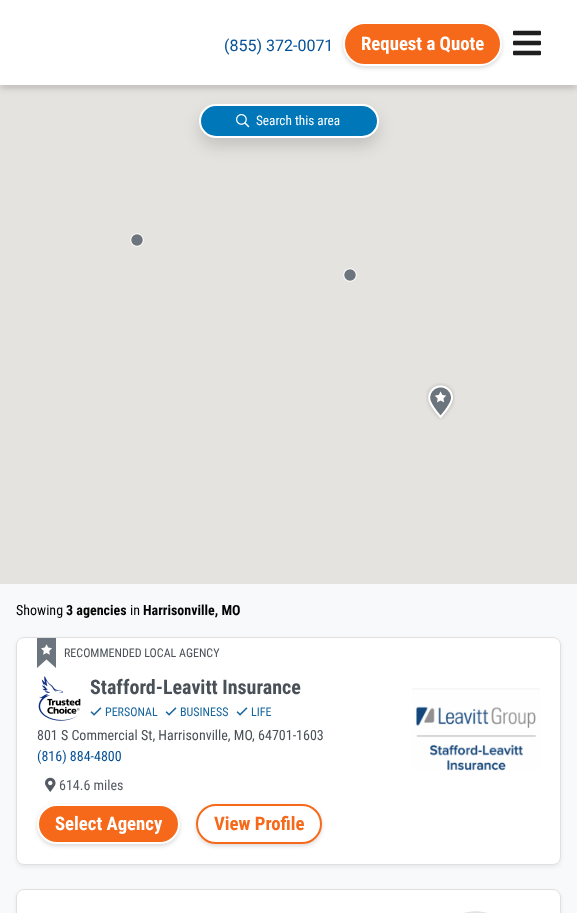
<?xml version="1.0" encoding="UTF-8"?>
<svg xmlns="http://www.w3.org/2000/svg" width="577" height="913">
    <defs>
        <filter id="blur1" x="-50%" y="-200%" width="200%" height="500%"><feGaussianBlur stdDeviation="3.5"/></filter>
        <filter id="blur2" x="-50%" y="-200%" width="200%" height="500%"><feGaussianBlur stdDeviation="2"/></filter>
        <filter id="blur3" x="-50%" y="-200%" width="200%" height="500%"><feGaussianBlur stdDeviation="8"/></filter>
        <clipPath id="clip1"><path d="M 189 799 H 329 V 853 H 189 Z M 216 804 H 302 C 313 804 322 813 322 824 C 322 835 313 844 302 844 H 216 C 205 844 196 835 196 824 C 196 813 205 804 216 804 Z" clip-rule="evenodd"/></clipPath>
    </defs>
    <rect width="100%" height="100%" fill="#E5E3DF"/>
    <rect x="0" y="2" width="577" height="85" fill="#292929" fill-opacity="0.25" filter="url(#blur1)"/>
    <rect x="0" y="0" width="577" height="85" fill="#FFFFFF"/>
    <text x="224" y="51" font-family="Roboto" font-size="16" fill="#035096">(855) 372-0071</text>
    <rect x="343" y="24" width="159" height="44" rx="22" fill="#000000" fill-opacity="0.15" filter="url(#blur2)"/>
    <rect x="344" y="23" width="157" height="42" rx="21" fill="#F6691A" stroke="#FFFFFF" stroke-width="2"/>
    <text x="361" y="50" font-family="Roboto Condensed" font-size="18.75" font-weight="700" fill="#FFFFFF">Request a Quote</text>
    <image x="513" y="30" width="28" height="26" href="img_01.png"/>
    <rect x="199" y="112" width="180" height="34" rx="17" fill="#000000" fill-opacity="0.15" filter="url(#blur3)"/>
    <rect x="200" y="105" width="178" height="32" rx="16" fill="#0077B8" stroke="#FFFFFF" stroke-width="2"/>
    <image x="236" y="114" width="14" height="14" href="img_02.png"/>
    <text x="256" y="125" font-family="Roboto Condensed" font-size="13.25" fill="#FFFFFF">Search this area</text>
    <image x="130" y="233" width="14" height="14" href="img_03.png"/>
    <image x="343" y="268" width="14" height="14" href="img_03.png"/>
    <image x="426" y="383" width="29" height="37" href="img_04.png"/>
    <rect x="0" y="584" width="577" height="329" fill="#F8F9FA"/>
    <text x="16" y="615" font-family="Roboto Condensed" font-size="14" fill="#030303">Showing</text>
    <text x="66" y="615" font-family="Roboto Condensed" font-size="14" font-weight="700" fill="#030303">3 agencies</text>
    <text x="130" y="615" font-family="Roboto Condensed" font-size="14" fill="#030303">in</text>
    <text x="143" y="615" font-family="Roboto Condensed" font-size="14" font-weight="700" fill="#030303">Harrisonville, MO</text>
    <rect x="16" y="639" width="545" height="228" rx="8" fill="#000000" fill-opacity="0.07" filter="url(#blur2)"/>
    <rect x="16" y="637" width="545" height="228" rx="8" fill="#FFFFFF"/>
    <rect x="16.5" y="637.5" width="544" height="227" rx="7.5" fill="none" stroke="#000000" stroke-opacity="0.12"/>
    <image x="37" y="638" width="19" height="30" href="img_05.png"/>
    <text x="64" y="657" font-family="Roboto Condensed" font-size="12" fill="#495057">RECOMMENDED LOCAL AGENCY</text>
    <image x="38" y="676" width="43" height="45" href="img_06.png"/>
    <text x="90" y="694" font-family="Roboto Condensed" font-size="20" font-weight="700" fill="#495057">Stafford-Leavitt Insurance</text>
    <image x="90" y="707" width="12" height="9" href="img_07.png"/>
    <text x="105" y="716" font-family="Roboto Condensed" font-size="12" fill="#16659E">PERSONAL</text>
    <image x="165" y="707" width="12" height="9" href="img_07.png"/>
    <text x="180" y="716" font-family="Roboto Condensed" font-size="12" fill="#16659E">BUSINESS</text>
    <image x="236" y="707" width="12" height="9" href="img_07.png"/>
    <text x="251" y="716" font-family="Roboto Condensed" font-size="12" fill="#16659E">LIFE</text>
    <text x="37" y="740" font-family="Roboto Condensed" font-size="14" fill="#495057">801 S Commercial St, Harrisonville, MO, 64701-1603</text>
    <text x="37" y="761" font-family="Roboto Condensed" font-size="14" fill="#035096">(816) 884-4800</text>
    <image x="45" y="777" width="11" height="15" href="img_08.png"/>
    <text x="59" y="790" font-family="Roboto Condensed" font-size="14" fill="#545963">614.6 miles</text>
    <rect x="37" y="806" width="143" height="40" rx="20" fill="#000000" fill-opacity="0.15" filter="url(#blur2)"/>
    <rect x="38" y="805" width="141" height="38" rx="19" fill="#F6691A" stroke="#FFFFFF" stroke-width="2"/>
    <text x="55" y="830" font-family="Roboto Condensed" font-size="18.75" font-weight="700" fill="#FFFFFF">Select Agency</text>
    <g clip-path="url(#clip1)">
        <rect x="196" y="806" width="126" height="40" rx="20" fill="#000000" fill-opacity="0.15" filter="url(#blur2)"/>
    </g>
    <rect x="197" y="805" width="124" height="38" rx="19" fill="none" stroke="#F6691A" stroke-width="2"/>
    <text x="214" y="830" font-family="Roboto Condensed" font-size="18.75" font-weight="700" fill="#F6691A">View Profile</text>
    <image x="412" y="688" width="128" height="83" href="img_09.png"/>
    <rect x="16" y="891" width="545" height="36" rx="8" fill="#000000" fill-opacity="0.07" filter="url(#blur2)"/>
    <rect x="16" y="889" width="545" height="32" rx="8" fill="#FFFFFF"/>
    <rect x="16.5" y="889.5" width="544" height="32" rx="7.5" fill="none" stroke="#000000" stroke-opacity="0.12"/>
    <image x="464" y="911" width="23" height="2" href="img_10.png"/>
</svg>
